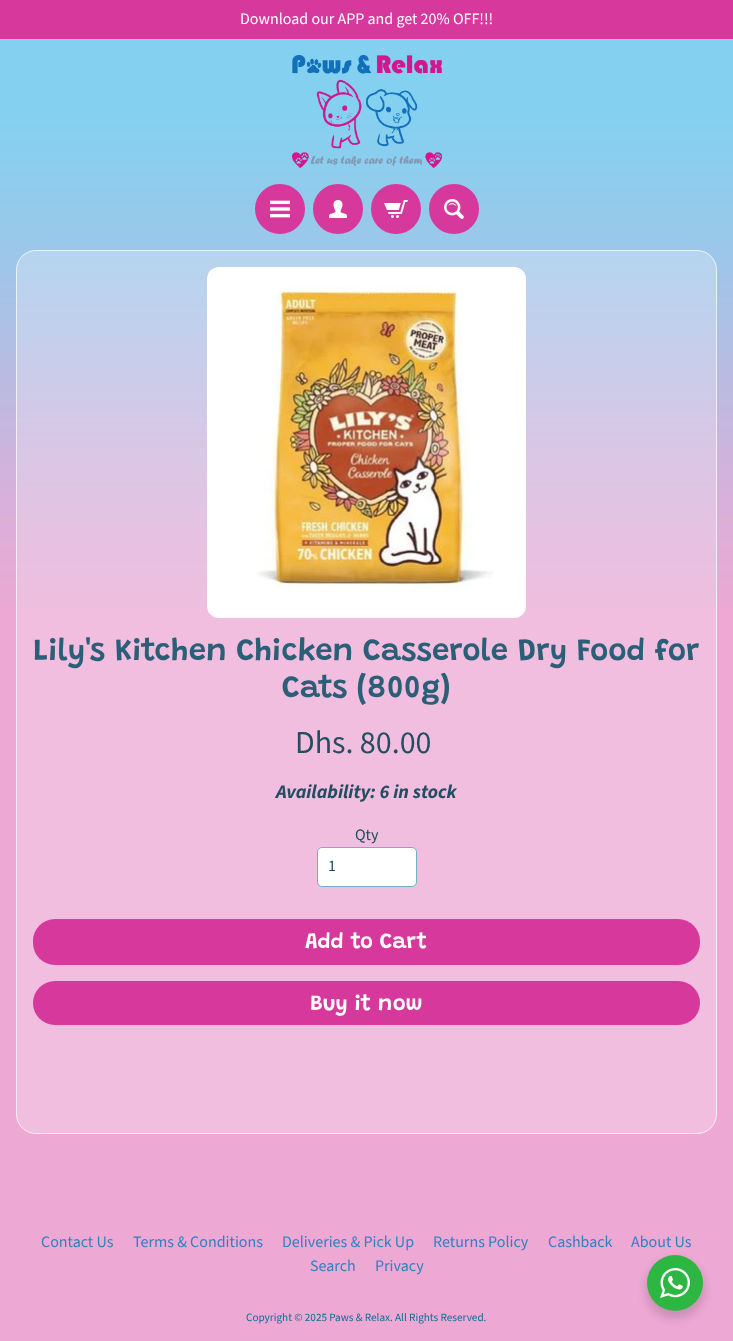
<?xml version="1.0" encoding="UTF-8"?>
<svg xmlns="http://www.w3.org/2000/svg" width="733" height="1341">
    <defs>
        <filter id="blur1" x="-50%" y="-200%" width="200%" height="500%"><feGaussianBlur stdDeviation="4"/></filter>
    </defs>
    <rect width="100%" height="100%" fill="#EDA8D4"/>
    <image x="0" y="39" width="733" height="568" href="img_01.png"/>
    <rect x="0" y="0" width="733" height="39" fill="#D7389C"/>
    <text x="240" y="24" font-family="Source Sans Pro" font-size="16" fill="#FFFFFF">Download our APP and get 20% OFF!!!</text>
    <image x="292" y="55" width="150" height="113" href="img_02.png"/>
    <circle cx="280" cy="209" r="23.5" fill="#D7389C" stroke="#D7389C" stroke-width="3"/>
    <image x="270" y="200" width="20" height="18" href="img_03.png"/>
    <circle cx="338" cy="209" r="23.5" fill="#D7389C" stroke="#D7389C" stroke-width="3"/>
    <image x="329" y="200" width="18" height="18" href="img_04.png"/>
    <circle cx="396" cy="209" r="23.5" fill="#D7389C" stroke="#D7389C" stroke-width="3"/>
    <image x="384" y="200" width="24" height="18" href="img_05.png"/>
    <circle cx="454" cy="209" r="23.5" fill="#D7389C" stroke="#D7389C" stroke-width="3"/>
    <image x="444" y="199" width="20" height="20" href="img_06.png"/>
    <rect x="16" y="250" width="701" height="884" rx="20" fill="#FFFFFF" fill-opacity="0.25"/>
    <rect x="16.5" y="250.5" width="700" height="883" rx="19.5" fill="none" stroke="#FFFFFF" stroke-opacity="0.7"/>
    <rect x="207" y="267" width="319" height="351" rx="12" fill="#FFFFFF"/>
    <image x="256" y="286" width="238" height="307" href="img_07.png"/>
    <text x="33" y="660" font-family="Grandstander" font-size="31.25" font-weight="600" fill="#2B5F77">Lily's Kitchen Chicken Casserole Dry Food for</text>
    <text x="282" y="697" font-family="Grandstander" font-size="31.25" font-weight="600" fill="#2B5F77">Cats (800g)</text>
    <text x="295" y="753" font-family="Source Sans Pro" font-size="32" fill="#234D61">Dhs. 80.00</text>
    <text x="276" y="798" font-family="Source Sans Pro" font-size="19.25" font-weight="700" font-style="italic" fill="#234D61">Availability: 6 in stock</text>
    <text x="355" y="840" font-family="Source Sans Pro" font-size="16" fill="#234D61">Qty</text>
    <rect x="317.5" y="847.5" width="99" height="39" rx="4.5" fill="#FFFFFF" stroke="#70B1CC"/>
    <text x="328" y="871" font-family="Source Sans Pro" font-size="16" fill="#234D61">1</text>
    <rect x="33" y="919" width="667" height="46" rx="22" fill="#D7389C"/>
    <text x="305" y="948" font-family="Grandstander" font-size="22" font-weight="600" fill="#FFFFFF">Add to Cart</text>
    <rect x="33" y="981" width="667" height="44" rx="22" fill="#D7389C"/>
    <text x="310" y="1010" font-family="Grandstander" font-size="22" font-weight="600" fill="#FFFFFF">Buy it now</text>
    <text x="41" y="1247" font-family="Source Sans Pro" font-size="16" fill="#3180C0">Contact Us</text>
    <text x="133" y="1247" font-family="Source Sans Pro" font-size="16" fill="#3180C0">Terms &amp; Conditions</text>
    <text x="282" y="1247" font-family="Source Sans Pro" font-size="16" fill="#3180C0">Deliveries &amp; Pick Up</text>
    <text x="433" y="1247" font-family="Source Sans Pro" font-size="16" fill="#3180C0">Returns Policy</text>
    <text x="548" y="1247" font-family="Source Sans Pro" font-size="16" fill="#3180C0">Cashback</text>
    <text x="631" y="1247" font-family="Source Sans Pro" font-size="16" fill="#3180C0">About Us</text>
    <text x="310" y="1271" font-family="Source Sans Pro" font-size="16" fill="#3180C0">Search</text>
    <text x="375" y="1271" font-family="Source Sans Pro" font-size="16" fill="#3180C0">Privacy</text>
    <text x="246" y="1321" font-family="Source Sans Pro" font-size="11.2" fill="#0A6E99">Copyright © 2025 Paws &amp; Relax. All Rights Reserved.</text>
    <rect x="645" y="1259" width="60" height="60" rx="30" fill="#000000" fill-opacity="0.14" filter="url(#blur1)"/>
    <circle cx="675" cy="1283" r="28" fill="#2DB742"/>
    <image x="660" y="1268" width="30" height="30" href="img_08.png"/>
</svg>
